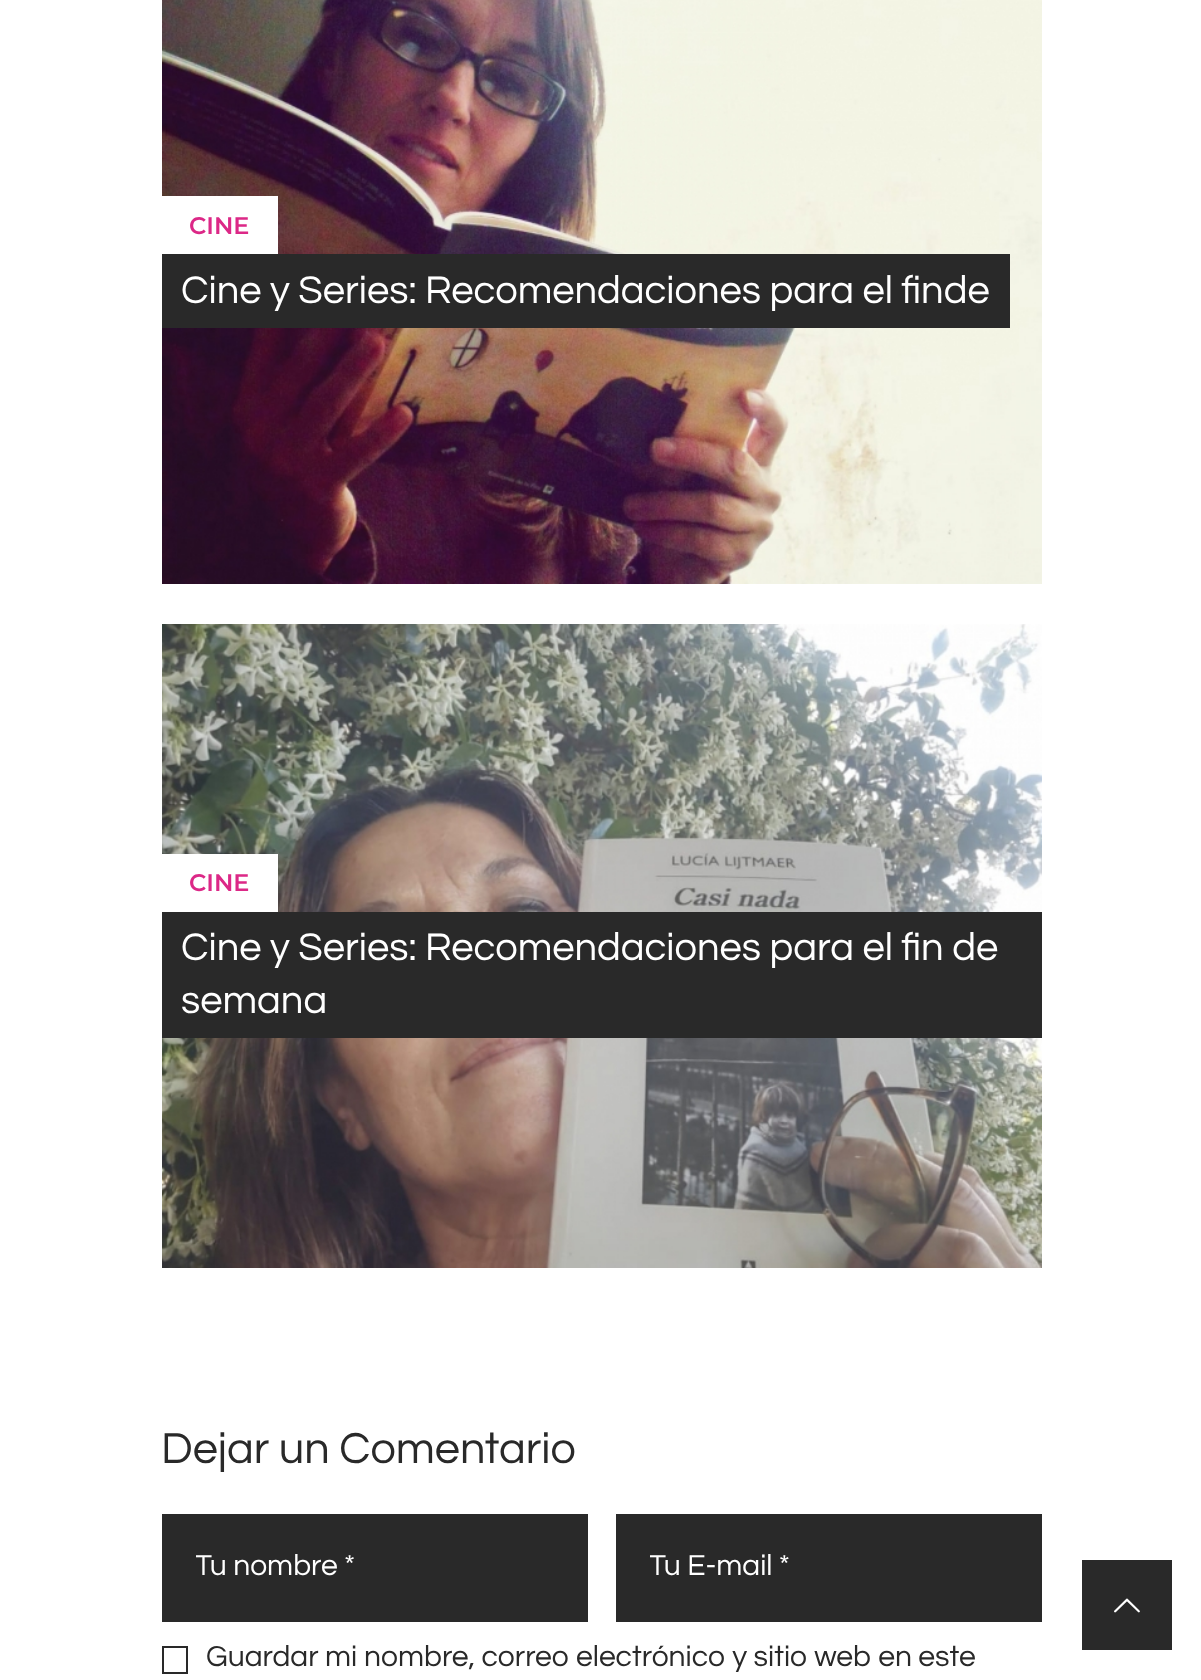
<?xml version="1.0" encoding="UTF-8"?>
<svg xmlns="http://www.w3.org/2000/svg" width="1201" height="1680">
    <defs>
        <clipPath id="clip1"><rect x="196" y="1552" width="358" height="30"/></clipPath>
        <clipPath id="clip2"><rect x="650" y="1552" width="358" height="30"/></clipPath>
    </defs>
    <rect width="100%" height="100%" fill="#FFFFFF"/>
    <image x="162" y="0" width="880" height="584" href="img_01.png"/>
    <rect x="162" y="196" width="116" height="58" fill="#FFFFFF"/>
    <text x="189" y="234" font-family="Montserrat" font-size="24" font-weight="600" fill="#DC2887">CINE</text>
    <rect x="162" y="254" width="848" height="74" fill="#292929"/>
    <text x="181" y="303" font-family="Questrial" font-size="39.9" fill="#FFFFFF">Cine y Series: Recomendaciones para el finde</text>
    <image x="162" y="624" width="880" height="644" href="img_02.png"/>
    <rect x="162" y="854" width="116" height="58" fill="#FFFFFF"/>
    <text x="189" y="891" font-family="Montserrat" font-size="24" font-weight="600" fill="#DC2887">CINE</text>
    <rect x="162" y="912" width="880" height="126" fill="#292929"/>
    <text font-family="Questrial" font-size="39.9" fill="#FFFFFF">
        <tspan x="181" y="960">Cine y Series: Recomendaciones para el fin de</tspan>
        <tspan x="181" y="1013">semana</tspan>
    </text>
    <text x="161" y="1463" font-family="Questrial" font-size="45" fill="#292929">Dejar un Comentario</text>
    <rect x="162" y="1514" width="426" height="108" fill="#292929"/>
    <g clip-path="url(#clip1)">
        <text x="195" y="1575" font-family="Questrial" font-size="30" fill="#FFFFFF">Tu nombre *</text>
    </g>
    <rect x="616" y="1514" width="426" height="108" fill="#292929"/>
    <g clip-path="url(#clip2)">
        <text x="649" y="1575" font-family="Questrial" font-size="30" fill="#FFFFFF">Tu E-mail *</text>
    </g>
    <rect x="163" y="1647" width="24" height="26" fill="none" stroke="#292929" stroke-width="2"/>
    <text x="206" y="1666" font-family="Questrial" font-size="30" fill="#292929">Guardar mi nombre, correo electrónico y sitio web en este</text>
    <rect x="1082" y="1560" width="90" height="90" fill="#292929"/>
    <image x="1114" y="1598" width="26" height="15" href="img_03.png"/>
</svg>
